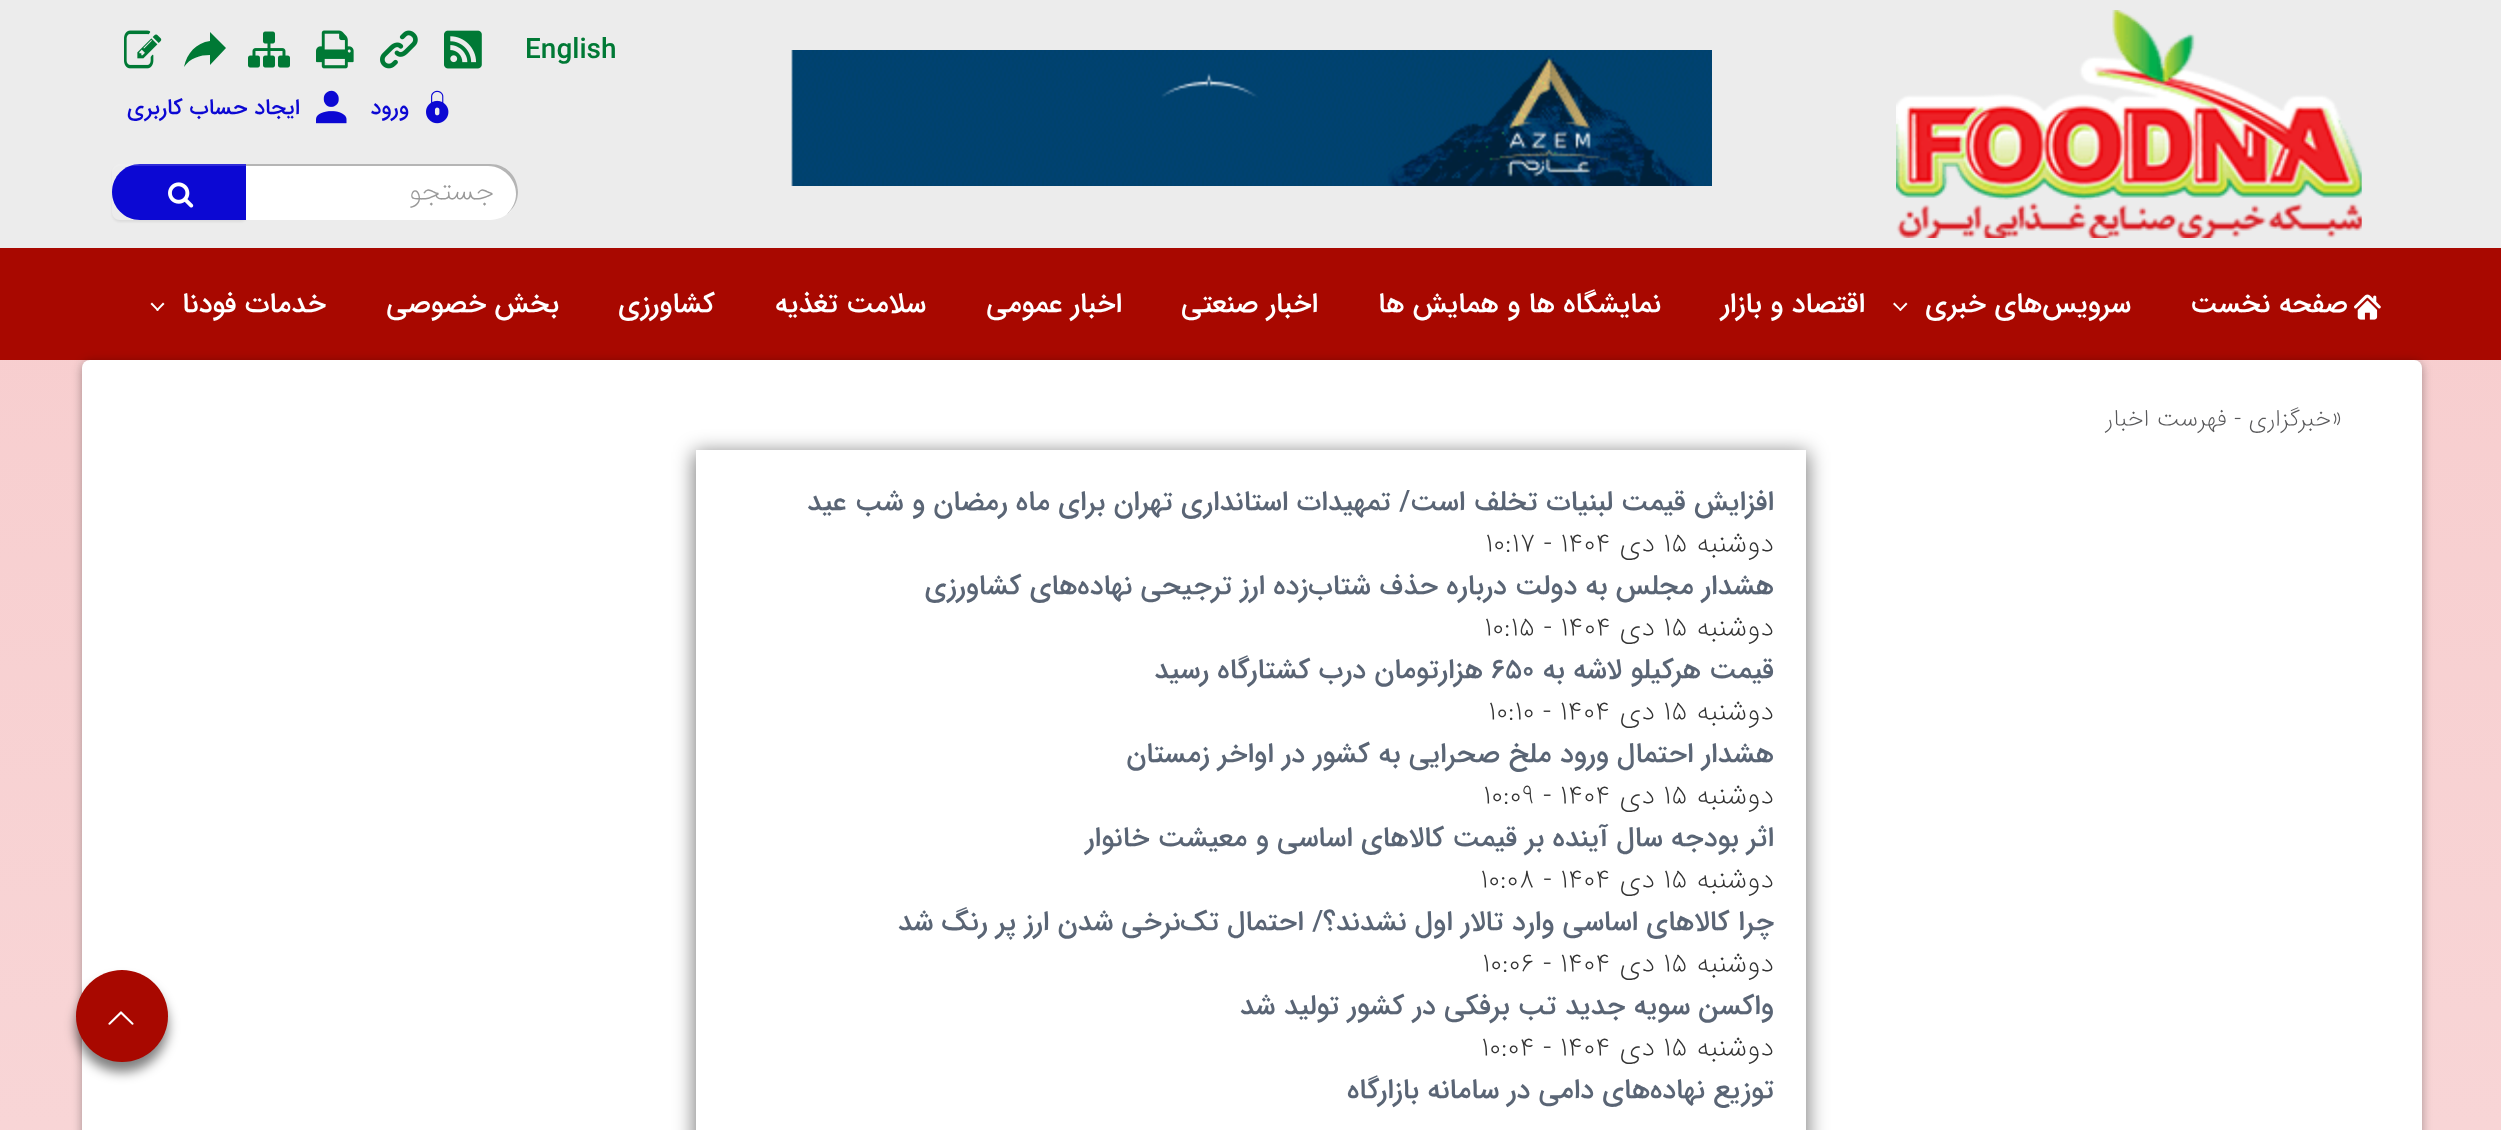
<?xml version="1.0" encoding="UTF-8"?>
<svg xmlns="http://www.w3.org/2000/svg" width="2501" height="1130">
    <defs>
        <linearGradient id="g1" gradientUnits="userSpaceOnUse" x1="1251" y1="0" x2="1251" y2="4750"><stop offset="0" stop-color="#F7CBCC"/><stop offset="0.26" stop-color="#F8D6D7"/><stop offset="0.84" stop-color="#FEF6F6"/><stop offset="1" stop-color="#FEFCFC"/></linearGradient>
        <clipPath id="clip1"><path d="M 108 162 H 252 V 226 H 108 Z M 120 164 H 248 V 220 H 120 C 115.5 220 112 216.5 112 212 V 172 C 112 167.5 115.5 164 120 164 Z" clip-rule="evenodd"/></clipPath>
        <filter id="blur1" x="-50%" y="-200%" width="200%" height="500%"><feGaussianBlur stdDeviation="1"/></filter>
        <filter id="blur2" x="-50%" y="-200%" width="200%" height="500%"><feGaussianBlur stdDeviation="4"/></filter>
        <filter id="blur3" x="-50%" y="-200%" width="200%" height="500%"><feGaussianBlur stdDeviation="6"/></filter>
        <clipPath id="clip2"><path d="M 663 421 H 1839 V 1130 H 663 Z M 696 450 H 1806 V 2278 H 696 Z" clip-rule="evenodd"/></clipPath>
        <filter id="blur4" x="-50%" y="-200%" width="200%" height="500%"><feGaussianBlur stdDeviation="10"/></filter>
    </defs>
    <rect width="100%" height="100%" fill="#FFFFFF"/>
    <rect x="0" y="360" width="2501" height="770" fill="url(#g1)"/>
    <rect x="0" y="0" width="2501" height="248" fill="#ECECEC"/>
    <image x="1896" y="10" width="466" height="228" href="img_01.png"/>
    <image x="791" y="50" width="921" height="136" href="img_02.png"/>
    <text x="525" y="58" font-family="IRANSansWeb" font-size="28" font-weight="500" fill="#007935">English</text>
    <image x="444" y="30" width="38" height="39" href="img_03.png"/>
    <image x="380" y="30" width="38" height="39" href="img_04.png"/>
    <image x="316" y="30" width="38" height="39" href="img_05.png"/>
    <image x="248" y="31" width="42" height="37" href="img_06.png"/>
    <path d="M 184 67 C 187 53 196 43 210 41 V 32 L 226 48 L 210 65 V 55 C 200 55 190 58 184 67 Z" fill="#007935"/>
    <image x="124" y="30" width="38" height="39" href="img_07.png"/>
    <image x="426" y="90" width="23" height="34" href="img_08.png"/>
    <text x="409" y="114" font-family="IRANSansWeb" font-size="22" font-weight="500" direction="rtl" fill="#0C08D3">ورود</text>
    <image x="316" y="90" width="31" height="34" href="img_09.png"/>
    <text x="300" y="114" font-family="IRANSansWeb" font-size="22" font-weight="500" direction="rtl" fill="#0C08D3">ایجاد حساب کاربری</text>
    <path d="M 140 164 H 246 V 220 H 140 C 124.5 220 112 207.5 112 192 C 112 176.5 124.5 164 140 164 Z" fill="#0C08D3"/>
    <g clip-path="url(#clip1)">
        <rect x="112" y="166" width="136" height="56" rx="8" fill="#000000" fill-opacity="0.07" filter="url(#blur1)"/>
    </g>
    <path d="M 120 166 H 248 V 164 H 120 C 116 164 112 168 112 172 V 174 C 112 170 116 166 120 166 Z" fill="#FFFFFF" fill-opacity="0.15"/>
    <path d="M 246 164 H 490 C 505.5 164 518 176.5 518 192 C 518 207.5 505.5 220 490 220 H 246 Z" fill="#FFFFFF"/>
    <path d="M 246 164 V 166 H 488 C 503 166 516 179 516 194 C 516 202 512 209 507 214 C 528 198 517 164 490 164 Z" fill="#101111" fill-opacity="0.31"/>
    <text x="494" y="200" font-family="IRANSansWeb" font-size="28" font-weight="200" direction="rtl" fill="#999999">جستجو</text>
    <image x="168" y="182" width="26" height="26" href="img_10.png"/>
    <rect x="0" y="248" width="2501" height="112" fill="#A80800"/>
    <image x="2354" y="294" width="27" height="26" href="img_11.png"/>
    <text x="2348" y="312" font-family="IRANSansWeb" font-size="28" font-weight="500" direction="rtl" fill="#FFFFFF">صفحه نخست</text>
    <text x="2131" y="312" font-family="IRANSansWeb" font-size="28" font-weight="500" direction="rtl" fill="#FFFFFF">سرویس‌های خبری</text>
    <path d="M 1906 302.5 L 1907.5 304 L 1900.5 311 L 1899 310 Z" fill="#FFFFFF"/>
    <path d="M 1894.5 302.5 L 1901.5 310 L 1900.5 311 L 1893 304 Z" fill="#FFFFFF"/>
    <text x="1865" y="312" font-family="IRANSansWeb" font-size="28" font-weight="500" direction="rtl" fill="#FFFFFF">اقتصاد و بازار</text>
    <text x="1661" y="312" font-family="IRANSansWeb" font-size="28" font-weight="500" direction="rtl" fill="#FFFFFF">نمایشگاه ها و همایش ها</text>
    <text x="1318" y="312" font-family="IRANSansWeb" font-size="28" font-weight="500" direction="rtl" fill="#FFFFFF">اخبار صنعتی</text>
    <text x="1122" y="312" font-family="IRANSansWeb" font-size="28" font-weight="500" direction="rtl" fill="#FFFFFF">اخبار عمومی</text>
    <text x="926" y="312" font-family="IRANSansWeb" font-size="28" font-weight="500" direction="rtl" fill="#FFFFFF">سلامت تغذیه</text>
    <text x="715" y="312" font-family="IRANSansWeb" font-size="28" font-weight="500" direction="rtl" fill="#FFFFFF">کشاورزی</text>
    <text x="559" y="312" font-family="IRANSansWeb" font-size="28" font-weight="500" direction="rtl" fill="#FFFFFF">بخش خصوصی</text>
    <text x="326" y="312" font-family="IRANSansWeb" font-size="28" font-weight="500" direction="rtl" fill="#FFFFFF">خدمات فودنا</text>
    <path d="M 163 302.5 L 164.5 304 L 157.5 311 L 156 310 Z" fill="#FFFFFF"/>
    <path d="M 152 302.5 L 159 310 L 157.5 311 L 150.5 304 Z" fill="#FFFFFF"/>
    <rect x="82" y="362" width="2340" height="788" rx="8" fill="#000000" fill-opacity="0.24" filter="url(#blur2)"/>
    <rect x="82" y="362" width="2340" height="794" rx="8" fill="#000000" fill-opacity="0.12" filter="url(#blur3)"/>
    <rect x="82" y="360" width="2340" height="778" rx="8" fill="#FFFFFF"/>
    <text x="2331" y="426" font-family="IRANSansWeb" font-size="28" font-weight="200" fill="#58585A">»</text>
    <text x="2331" y="426" font-family="IRANSansWeb" font-size="24" font-weight="200" direction="rtl" fill="#58585A">خبرگزاری - فهرست اخبار</text>
    <g clip-path="url(#clip2)">
        <rect x="694" y="452" width="1114" height="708" fill="#000000" fill-opacity="0.5" filter="url(#blur4)"/>
    </g>
    <text x="1774" y="510" font-family="IRANSansWeb" font-size="28" font-weight="500" direction="rtl" fill="#5A6575">افزایش قیمت لبنیات تخلف است/ تمهیدات استانداری تهران برای ماه رمضان و شب عید</text>
    <text x="1774" y="552" font-family="IRANSansWeb" font-size="28" font-weight="200" direction="rtl" fill="#333333">دوشنبه</text>
    <text x="1663" y="552" font-family="IRANSansWeb" font-size="28" font-weight="200" fill="#333333">۱۵</text>
    <text x="1655" y="552" font-family="IRANSansWeb" font-size="28" font-weight="200" direction="rtl" fill="#333333">دی</text>
    <text x="1485" y="552" font-family="IRANSansWeb" font-size="28" font-weight="200" fill="#333333">۱۰:۱۷ - ۱۴۰۴</text>
    <text x="1774" y="594" font-family="IRANSansWeb" font-size="28" font-weight="500" direction="rtl" fill="#5A6575">هشدار مجلس به دولت درباره حذف شتاب‌زده ارز ترجیحی نهاده‌های کشاورزی</text>
    <text x="1774" y="636" font-family="IRANSansWeb" font-size="28" font-weight="200" direction="rtl" fill="#333333">دوشنبه</text>
    <text x="1663" y="636" font-family="IRANSansWeb" font-size="28" font-weight="200" fill="#333333">۱۵</text>
    <text x="1655" y="636" font-family="IRANSansWeb" font-size="28" font-weight="200" direction="rtl" fill="#333333">دی</text>
    <text x="1484" y="636" font-family="IRANSansWeb" font-size="28" font-weight="200" fill="#333333">۱۰:۱۵ - ۱۴۰۴</text>
    <text x="1774" y="678" font-family="IRANSansWeb" font-size="28" font-weight="500" direction="rtl" fill="#5A6575">قیمت هرکیلو لاشه به</text>
    <text x="1491" y="678" font-family="IRANSansWeb" font-size="28" font-weight="500" fill="#5A6575">۶۵۰</text>
    <text x="1483" y="678" font-family="IRANSansWeb" font-size="28" font-weight="500" direction="rtl" fill="#5A6575">هزارتومان درب کشتارگاه رسید</text>
    <text x="1774" y="720" font-family="IRANSansWeb" font-size="28" font-weight="200" direction="rtl" fill="#333333">دوشنبه</text>
    <text x="1663" y="720" font-family="IRANSansWeb" font-size="28" font-weight="200" fill="#333333">۱۵</text>
    <text x="1655" y="720" font-family="IRANSansWeb" font-size="28" font-weight="200" direction="rtl" fill="#333333">دی</text>
    <text x="1488" y="720" font-family="IRANSansWeb" font-size="28" font-weight="200" fill="#333333">۱۰:۱۰ - ۱۴۰۴</text>
    <text x="1774" y="762" font-family="IRANSansWeb" font-size="28" font-weight="500" direction="rtl" fill="#5A6575">هشدار احتمال ورود ملخ صحرایی به کشور در اواخر زمستان</text>
    <text x="1774" y="804" font-family="IRANSansWeb" font-size="28" font-weight="200" direction="rtl" fill="#333333">دوشنبه</text>
    <text x="1663" y="804" font-family="IRANSansWeb" font-size="28" font-weight="200" fill="#333333">۱۵</text>
    <text x="1655" y="804" font-family="IRANSansWeb" font-size="28" font-weight="200" direction="rtl" fill="#333333">دی</text>
    <text x="1483" y="804" font-family="IRANSansWeb" font-size="28" font-weight="200" fill="#333333">۱۰:۰۹ - ۱۴۰۴</text>
    <text x="1774" y="846" font-family="IRANSansWeb" font-size="28" font-weight="500" direction="rtl" fill="#5A6575">اثر بودجه سال آینده بر قیمت کالا‌های اساسی و معیشت خانوار</text>
    <text x="1774" y="888" font-family="IRANSansWeb" font-size="28" font-weight="200" direction="rtl" fill="#333333">دوشنبه</text>
    <text x="1663" y="888" font-family="IRANSansWeb" font-size="28" font-weight="200" fill="#333333">۱۵</text>
    <text x="1655" y="888" font-family="IRANSansWeb" font-size="28" font-weight="200" direction="rtl" fill="#333333">دی</text>
    <text x="1480" y="888" font-family="IRANSansWeb" font-size="28" font-weight="200" fill="#333333">۱۰:۰۸ - ۱۴۰۴</text>
    <text x="1774" y="930" font-family="IRANSansWeb" font-size="28" font-weight="500" direction="rtl" fill="#5A6575">چرا کالاهای اساسی وارد تالار اول نشدند؟/ احتمال تک‌نرخی شدن ارز پر رنگ شد</text>
    <text x="1774" y="972" font-family="IRANSansWeb" font-size="28" font-weight="200" direction="rtl" fill="#333333">دوشنبه</text>
    <text x="1663" y="972" font-family="IRANSansWeb" font-size="28" font-weight="200" fill="#333333">۱۵</text>
    <text x="1655" y="972" font-family="IRANSansWeb" font-size="28" font-weight="200" direction="rtl" fill="#333333">دی</text>
    <text x="1482" y="972" font-family="IRANSansWeb" font-size="28" font-weight="200" fill="#333333">۱۰:۰۶ - ۱۴۰۴</text>
    <text x="1774" y="1014" font-family="IRANSansWeb" font-size="28" font-weight="500" direction="rtl" fill="#5A6575">واکسن سویه جدید تب برفکی در کشور تولید شد</text>
    <text x="1774" y="1056" font-family="IRANSansWeb" font-size="28" font-weight="200" direction="rtl" fill="#333333">دوشنبه</text>
    <text x="1663" y="1056" font-family="IRANSansWeb" font-size="28" font-weight="200" fill="#333333">۱۵</text>
    <text x="1655" y="1056" font-family="IRANSansWeb" font-size="28" font-weight="200" direction="rtl" fill="#333333">دی</text>
    <text x="1481" y="1056" font-family="IRANSansWeb" font-size="28" font-weight="200" fill="#333333">۱۰:۰۴ - ۱۴۰۴</text>
    <text x="1774" y="1098" font-family="IRANSansWeb" font-size="28" font-weight="500" direction="rtl" fill="#5A6575">توزیع نهاده‌های دامی در سامانه بازارگاه</text>
    <rect x="76" y="980" width="92" height="92" rx="46" fill="#000000" fill-opacity="0.5" filter="url(#blur3)"/>
    <circle cx="122" cy="1016" r="46" fill="#A80800"/>
    <image x="108" y="1011" width="26" height="14" href="img_12.png"/>
</svg>
